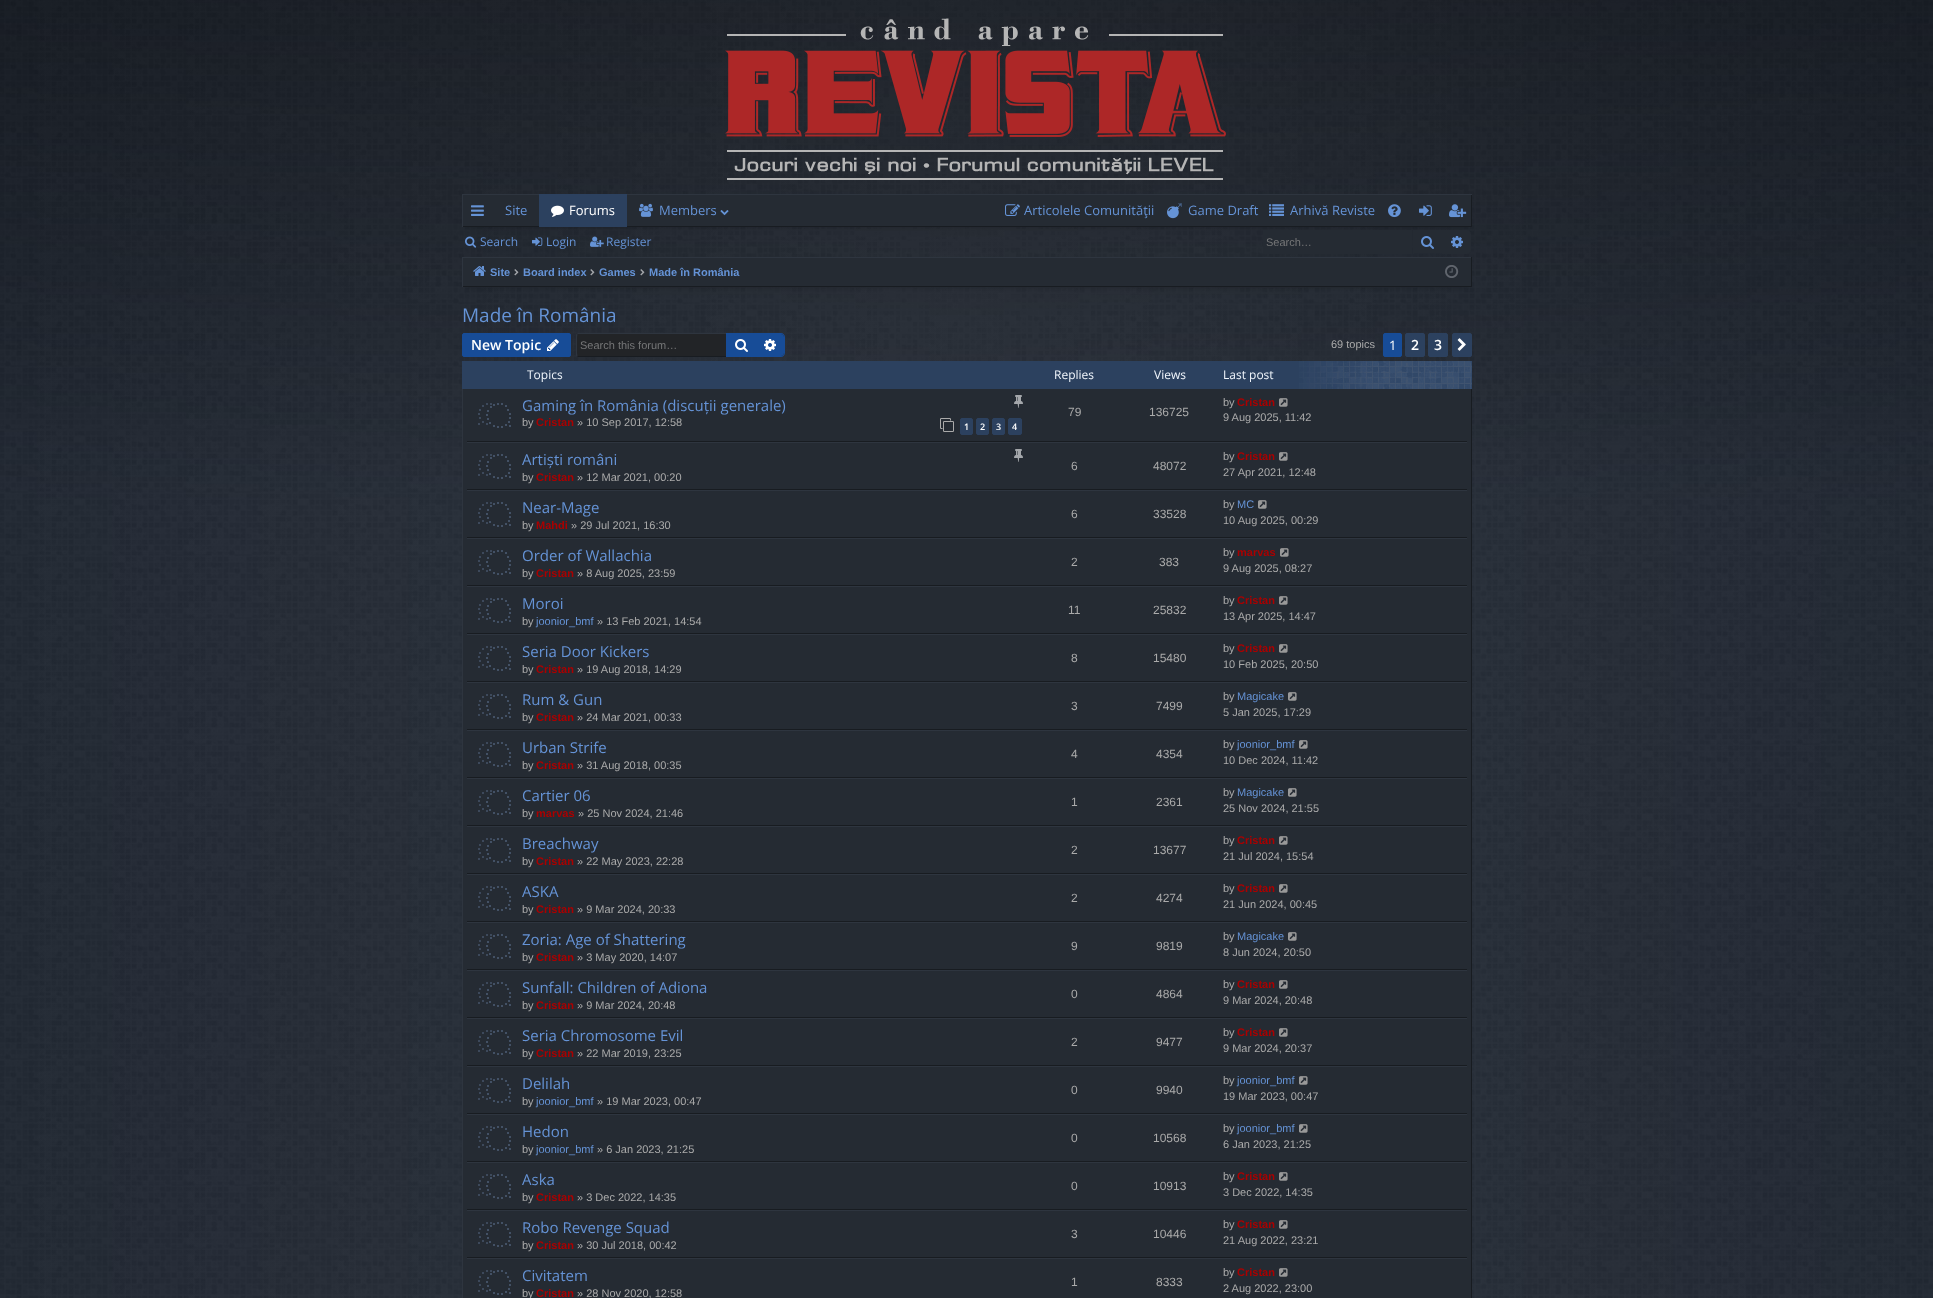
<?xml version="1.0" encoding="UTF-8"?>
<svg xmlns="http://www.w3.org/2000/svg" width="1933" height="1298">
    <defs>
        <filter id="blur1" x="-50%" y="-200%" width="200%" height="500%"><feGaussianBlur stdDeviation="2.5"/></filter>
        <clipPath id="clip1"><rect x="462" y="194" width="1010" height="33"/></clipPath>
    </defs>
    <rect width="100%" height="100%" fill="#1C232E"/>
    <image x="0" y="0" width="1933" height="1298" href="img_01.png"/>
    <image x="725" y="18" width="501" height="162" href="img_02.png"/>
    <rect x="467" y="204" width="1000" height="23" fill="#000000" fill-opacity="0.2" filter="url(#blur1)"/>
    <rect x="463" y="195" width="1008" height="31" fill="#252B33"/>
    <g clip-path="url(#clip1)">
        <path d="M 363 95 H 1571 V 326 H 363 Z M 461 193 H 1471 V 226 H 461 Z" fill="#181C21" fill-rule="evenodd"/>
        <path d="M 363 95 H 1571 V 326 H 363 Z M 463 195 H 1473 V 228 H 463 Z" fill="#2E353F" fill-rule="evenodd"/>
    </g>
    <image x="471" y="205" width="13" height="11" href="img_03.png"/>
    <text x="505" y="215" font-family="Open Sans" font-size="13" fill="#6593D6">Site</text>
    <rect x="539" y="194" width="88" height="33" fill="#2C415F"/>
    <image x="551" y="205" width="13" height="12" href="img_04.png"/>
    <text x="569" y="215" font-family="Open Sans" font-size="13" fill="#FFFFFF">Forums</text>
    <image x="639" y="203" width="14" height="14" href="img_05.png"/>
    <text x="659" y="215" font-family="Open Sans" font-size="13" fill="#6593D6">Members</text>
    <image x="720" y="210" width="9" height="6" href="img_06.png"/>
    <image x="1005" y="204" width="15" height="12" href="img_07.png"/>
    <text x="1024" y="215" font-family="Open Sans" font-size="13" fill="#6593D6">Articolele Comunităţii</text>
    <image x="1167" y="203" width="15" height="16" href="img_08.png"/>
    <text x="1188" y="215" font-family="Open Sans" font-size="13" fill="#6593D6">Game Draft</text>
    <image x="1269" y="204" width="15" height="12" href="img_09.png"/>
    <text x="1290" y="215" font-family="Open Sans" font-size="13" fill="#6593D6">Arhivă Reviste</text>
    <image x="1388" y="204" width="13" height="14" href="img_10.png"/>
    <image x="1419" y="205" width="13" height="11" href="img_11.png"/>
    <image x="1449" y="204" width="18" height="14" href="img_12.png"/>
    <image x="465" y="236" width="12" height="12" href="img_13.png"/>
    <text x="480" y="246" font-family="Open Sans" font-size="12" fill="#6593D6">Search</text>
    <image x="532" y="237" width="11" height="9" href="img_14.png"/>
    <text x="546" y="246" font-family="Open Sans" font-size="12" fill="#6593D6">Login</text>
    <image x="590" y="236" width="14" height="11" href="img_15.png"/>
    <text x="606" y="246" font-family="Open Sans" font-size="12" fill="#6593D6">Register</text>
    <rect x="1263" y="230" width="149" height="24" fill="#252B33"/>
    <text x="1266" y="246" font-family="Liberation Sans" font-size="11" fill="#757677">Search…</text>
    <rect x="1414" y="230" width="28" height="23" fill="#252B33"/>
    <rect x="1442" y="230" width="1" height="24" fill="#252B33"/>
    <rect x="1413" y="230" width="1" height="24" fill="#252B33"/>
    <image x="1421" y="236" width="13" height="13" href="img_16.png"/>
    <path d="M 1443 230 H 1467 C 1469 230 1471 232 1471 234 V 250 C 1471 252 1469 254 1467 254 H 1443 Z" fill="#252B33"/>
    <image x="1451" y="236" width="12" height="12" href="img_17.png"/>
    <rect x="467" y="267" width="1000" height="20" fill="#000000" fill-opacity="0.2" filter="url(#blur1)"/>
    <rect x="463" y="258" width="1008" height="28" fill="#252B33"/>
    <rect x="462" y="257" width="1010" height="1" fill="#2E353F"/>
    <rect x="1471" y="257" width="1" height="30" fill="#181C21"/>
    <rect x="462" y="286" width="1010" height="1" fill="#181C21"/>
    <rect x="462" y="257" width="1" height="30" fill="#2E353F"/>
    <image x="473" y="266" width="13" height="10" href="img_18.png"/>
    <text x="490" y="276" font-family="Liberation Sans" font-size="11" font-weight="700" fill="#6593D6">Site</text>
    <image x="514" y="269" width="5" height="7" href="img_19.png"/>
    <text x="523" y="276" font-family="Liberation Sans" font-size="11" font-weight="700" fill="#6593D6">Board index</text>
    <image x="590" y="269" width="5" height="7" href="img_19.png"/>
    <text x="599" y="276" font-family="Liberation Sans" font-size="11" font-weight="700" fill="#6593D6">Games</text>
    <image x="640" y="269" width="5" height="7" href="img_19.png"/>
    <text x="649" y="276" font-family="Liberation Sans" font-size="11" font-weight="700" fill="#6593D6">Made în România</text>
    <image x="1445" y="265" width="14" height="13" href="img_20.png"/>
    <text x="462" y="322" font-family="Open Sans" font-size="19" fill="#6593D6">Made în România</text>
    <rect x="462.5" y="333.5" width="108" height="23" rx="1.5" fill="#174C97" stroke="#174C97"/>
    <text x="471" y="350" font-family="Open Sans" font-size="14" font-weight="600" fill="#FFFFFF">New Topic</text>
    <image x="547" y="339" width="12" height="12" href="img_21.png"/>
    <path d="M 578 334 H 726 V 356 H 578 C 577.5 356 577 355.5 577 355 V 335 C 577 334.5 577.5 334 578 334 Z" fill="#222427"/>
    <path d="M 578 333 L 577 334 H 726 V 333 Z" fill="#2E353F"/>
    <path d="M 726 357 V 356 H 577 L 578 357 Z" fill="#181C21"/>
    <path d="M 576 335 V 355 C 576 355.5 576 356 576.5 356.5 L 577.5 355.5 L 577 353 V 337 L 577.5 334.5 L 576.5 333.5 Z" fill="#2E353F"/>
    <text x="580" y="349" font-family="Liberation Sans" font-size="11" fill="#757677">Search this forum…</text>
    <rect x="726" y="333" width="30" height="24" fill="#174C97"/>
    <image x="735" y="339" width="13" height="13" href="img_22.png"/>
    <path d="M 756 334 H 781 C 782.5 334 784 335.5 784 337 V 353 C 784 354.5 782.5 356 781 356 H 756 Z" fill="#174C97"/>
    <path d="M 756 333 H 781 C 783 333 785 335 785 337 V 353 C 785 355 783 357 781 357 H 756 Z M 756 334 H 781 C 782.5 334 784 335.5 784 337 V 353 C 784 354.5 782.5 356 781 356 H 756 Z" fill="#174C97" fill-rule="evenodd"/>
    <image x="764" y="339" width="12" height="12" href="img_23.png"/>
    <text x="1331" y="348" font-family="Liberation Sans" font-size="11" fill="#AAAAAA">69 topics</text>
    <rect x="1383.5" y="333.5" width="18" height="23" rx="1.5" fill="#174C97" stroke="#174C97"/>
    <text x="1389" y="350" font-family="Open Sans" font-size="13" fill="#FFFFFF">1</text>
    <rect x="1405.5" y="333.5" width="19" height="23" rx="1.5" fill="#2C415F" stroke="#2C415F"/>
    <text x="1411" y="350" font-family="Open Sans" font-size="14" font-weight="600" fill="#FFFFFF">2</text>
    <rect x="1428.5" y="333.5" width="19" height="23" rx="1.5" fill="#2C415F" stroke="#2C415F"/>
    <text x="1434" y="350" font-family="Open Sans" font-size="14" font-weight="600" fill="#FFFFFF">3</text>
    <rect x="1452.5" y="333.5" width="19" height="23" rx="1.5" fill="#2C415F" stroke="#2C415F"/>
    <image x="1457" y="338" width="9" height="13" href="img_24.png"/>
    <rect x="463" y="389" width="1008" height="909" fill="#252B33"/>
    <rect x="1471" y="389" width="1" height="909" fill="#181C21"/>
    <rect x="462" y="389" width="1" height="909" fill="#2E353F"/>
    <rect x="462" y="361" width="1010" height="28" fill="#2C415F"/>
    <image x="1299" y="361" width="173" height="28" href="img_25.png"/>
    <text x="527" y="379" font-family="Open Sans" font-size="12" fill="#F1F6FC">Topics</text>
    <text x="1054" y="379" font-family="Open Sans" font-size="12" fill="#F1F6FC">Replies</text>
    <text x="1154" y="379" font-family="Open Sans" font-size="12" fill="#F1F6FC">Views</text>
    <text x="1223" y="379" font-family="Open Sans" font-size="12" fill="#F1F6FC">Last post</text>
    <rect x="467" y="441" width="1000" height="1" fill="#181C21"/>
    <image x="478" y="403" width="33" height="25" href="img_26.png"/>
    <text x="522" y="411" font-family="Open Sans" font-size="15" fill="#6593D6">Gaming în România (discuții generale)</text>
    <image x="1014" y="395" width="9" height="13" href="img_27.png"/>
    <text x="522" y="426" font-family="Liberation Sans" font-size="11" fill="#AAAAAA">by</text>
    <text x="536" y="426" font-family="Liberation Sans" font-size="11" font-weight="700" fill="#AA0000">Cristan</text>
    <text x="577" y="426" font-family="Liberation Sans" font-size="11" fill="#AAAAAA">» 10 Sep 2017, 12:58</text>
    <image x="940" y="418" width="14" height="14" href="img_28.png"/>
    <rect x="960.5" y="418.5" width="12" height="16" rx="1.5" fill="#2C415F" stroke="#2C415F"/>
    <text x="964" y="430" font-family="Open Sans" font-size="9" font-weight="600" fill="#FFFFFF">1</text>
    <rect x="976.5" y="418.5" width="12" height="16" rx="1.5" fill="#2C415F" stroke="#2C415F"/>
    <text x="980" y="430" font-family="Open Sans" font-size="9" font-weight="600" fill="#FFFFFF">2</text>
    <rect x="992.5" y="418.5" width="12" height="16" rx="1.5" fill="#2C415F" stroke="#2C415F"/>
    <text x="996" y="430" font-family="Open Sans" font-size="9" font-weight="600" fill="#FFFFFF">3</text>
    <rect x="1008.5" y="418.5" width="13" height="16" rx="1.5" fill="#2C415F" stroke="#2C415F"/>
    <text x="1012" y="430" font-family="Open Sans" font-size="9" font-weight="600" fill="#FFFFFF">4</text>
    <text x="1068" y="416" font-family="Liberation Sans" font-size="12" fill="#AAAAAA">79</text>
    <text x="1149" y="416" font-family="Liberation Sans" font-size="12" fill="#AAAAAA">136725</text>
    <text x="1223" y="406" font-family="Liberation Sans" font-size="11" fill="#AAAAAA">by</text>
    <text x="1237" y="406" font-family="Liberation Sans" font-size="11" font-weight="700" fill="#AA0000">Cristan</text>
    <image x="1279" y="398" width="9" height="9" href="img_29.png"/>
    <text x="1223" y="421" font-family="Liberation Sans" font-size="11" fill="#AAAAAA">9 Aug 2025, 11:42</text>
    <rect x="467" y="442" width="1000" height="1" fill="#2E353F"/>
    <rect x="467" y="489" width="1000" height="1" fill="#181C21"/>
    <image x="478" y="454" width="33" height="25" href="img_26.png"/>
    <text x="522" y="465" font-family="Open Sans" font-size="15" fill="#6593D6">Artiști români</text>
    <image x="1014" y="449" width="9" height="13" href="img_27.png"/>
    <text x="522" y="481" font-family="Liberation Sans" font-size="11" fill="#AAAAAA">by</text>
    <text x="536" y="481" font-family="Liberation Sans" font-size="11" font-weight="700" fill="#AA0000">Cristan</text>
    <text x="577" y="481" font-family="Liberation Sans" font-size="11" fill="#AAAAAA">» 12 Mar 2021, 00:20</text>
    <text x="1071" y="470" font-family="Liberation Sans" font-size="12" fill="#AAAAAA">6</text>
    <text x="1153" y="470" font-family="Liberation Sans" font-size="12" fill="#AAAAAA">48072</text>
    <text x="1223" y="460" font-family="Liberation Sans" font-size="11" fill="#AAAAAA">by</text>
    <text x="1237" y="460" font-family="Liberation Sans" font-size="11" font-weight="700" fill="#AA0000">Cristan</text>
    <image x="1279" y="452" width="9" height="9" href="img_29.png"/>
    <text x="1223" y="476" font-family="Liberation Sans" font-size="11" fill="#AAAAAA">27 Apr 2021, 12:48</text>
    <rect x="467" y="490" width="1000" height="1" fill="#2E353F"/>
    <rect x="467" y="537" width="1000" height="1" fill="#181C21"/>
    <image x="478" y="502" width="33" height="25" href="img_26.png"/>
    <text x="522" y="513" font-family="Open Sans" font-size="15" fill="#6593D6">Near-Mage</text>
    <text x="522" y="529" font-family="Liberation Sans" font-size="11" fill="#AAAAAA">by</text>
    <text x="536" y="529" font-family="Liberation Sans" font-size="11" font-weight="700" fill="#AA0000">Mahdi</text>
    <text x="571" y="529" font-family="Liberation Sans" font-size="11" fill="#AAAAAA">» 29 Jul 2021, 16:30</text>
    <text x="1071" y="518" font-family="Liberation Sans" font-size="12" fill="#AAAAAA">6</text>
    <text x="1153" y="518" font-family="Liberation Sans" font-size="12" fill="#AAAAAA">33528</text>
    <text x="1223" y="508" font-family="Liberation Sans" font-size="11" fill="#AAAAAA">by</text>
    <text x="1237" y="508" font-family="Liberation Sans" font-size="11" fill="#6593D6">MC</text>
    <image x="1258" y="500" width="9" height="9" href="img_29.png"/>
    <text x="1223" y="524" font-family="Liberation Sans" font-size="11" fill="#AAAAAA">10 Aug 2025, 00:29</text>
    <rect x="467" y="538" width="1000" height="1" fill="#2E353F"/>
    <rect x="467" y="585" width="1000" height="1" fill="#181C21"/>
    <image x="478" y="550" width="33" height="25" href="img_26.png"/>
    <text x="522" y="561" font-family="Open Sans" font-size="15" fill="#6593D6">Order of Wallachia</text>
    <text x="522" y="577" font-family="Liberation Sans" font-size="11" fill="#AAAAAA">by</text>
    <text x="536" y="577" font-family="Liberation Sans" font-size="11" font-weight="700" fill="#AA0000">Cristan</text>
    <text x="577" y="577" font-family="Liberation Sans" font-size="11" fill="#AAAAAA">» 8 Aug 2025, 23:59</text>
    <text x="1071" y="566" font-family="Liberation Sans" font-size="12" fill="#AAAAAA">2</text>
    <text x="1159" y="566" font-family="Liberation Sans" font-size="12" fill="#AAAAAA">383</text>
    <text x="1223" y="556" font-family="Liberation Sans" font-size="11" fill="#AAAAAA">by</text>
    <text x="1237" y="556" font-family="Liberation Sans" font-size="11" font-weight="700" fill="#AA0000">marvas</text>
    <image x="1280" y="548" width="9" height="9" href="img_29.png"/>
    <text x="1223" y="572" font-family="Liberation Sans" font-size="11" fill="#AAAAAA">9 Aug 2025, 08:27</text>
    <rect x="467" y="586" width="1000" height="1" fill="#2E353F"/>
    <rect x="467" y="633" width="1000" height="1" fill="#181C21"/>
    <image x="478" y="598" width="33" height="25" href="img_26.png"/>
    <text x="522" y="609" font-family="Open Sans" font-size="15" fill="#6593D6">Moroi</text>
    <text x="522" y="625" font-family="Liberation Sans" font-size="11" fill="#AAAAAA">by</text>
    <text x="536" y="625" font-family="Liberation Sans" font-size="11" fill="#6593D6">joonior_bmf</text>
    <text x="597" y="625" font-family="Liberation Sans" font-size="11" fill="#AAAAAA">» 13 Feb 2021, 14:54</text>
    <text x="1068" y="614" font-family="Liberation Sans" font-size="12" fill="#AAAAAA">11</text>
    <text x="1153" y="614" font-family="Liberation Sans" font-size="12" fill="#AAAAAA">25832</text>
    <text x="1223" y="604" font-family="Liberation Sans" font-size="11" fill="#AAAAAA">by</text>
    <text x="1237" y="604" font-family="Liberation Sans" font-size="11" font-weight="700" fill="#AA0000">Cristan</text>
    <image x="1279" y="596" width="9" height="9" href="img_29.png"/>
    <text x="1223" y="620" font-family="Liberation Sans" font-size="11" fill="#AAAAAA">13 Apr 2025, 14:47</text>
    <rect x="467" y="634" width="1000" height="1" fill="#2E353F"/>
    <rect x="467" y="681" width="1000" height="1" fill="#181C21"/>
    <image x="478" y="646" width="33" height="25" href="img_26.png"/>
    <text x="522" y="657" font-family="Open Sans" font-size="15" fill="#6593D6">Seria Door Kickers</text>
    <text x="522" y="673" font-family="Liberation Sans" font-size="11" fill="#AAAAAA">by</text>
    <text x="536" y="673" font-family="Liberation Sans" font-size="11" font-weight="700" fill="#AA0000">Cristan</text>
    <text x="577" y="673" font-family="Liberation Sans" font-size="11" fill="#AAAAAA">» 19 Aug 2018, 14:29</text>
    <text x="1071" y="662" font-family="Liberation Sans" font-size="12" fill="#AAAAAA">8</text>
    <text x="1153" y="662" font-family="Liberation Sans" font-size="12" fill="#AAAAAA">15480</text>
    <text x="1223" y="652" font-family="Liberation Sans" font-size="11" fill="#AAAAAA">by</text>
    <text x="1237" y="652" font-family="Liberation Sans" font-size="11" font-weight="700" fill="#AA0000">Cristan</text>
    <image x="1279" y="644" width="9" height="9" href="img_29.png"/>
    <text x="1223" y="668" font-family="Liberation Sans" font-size="11" fill="#AAAAAA">10 Feb 2025, 20:50</text>
    <rect x="467" y="682" width="1000" height="1" fill="#2E353F"/>
    <rect x="467" y="729" width="1000" height="1" fill="#181C21"/>
    <image x="478" y="694" width="33" height="25" href="img_26.png"/>
    <text x="522" y="705" font-family="Open Sans" font-size="15" fill="#6593D6">Rum &amp; Gun</text>
    <text x="522" y="721" font-family="Liberation Sans" font-size="11" fill="#AAAAAA">by</text>
    <text x="536" y="721" font-family="Liberation Sans" font-size="11" font-weight="700" fill="#AA0000">Cristan</text>
    <text x="577" y="721" font-family="Liberation Sans" font-size="11" fill="#AAAAAA">» 24 Mar 2021, 00:33</text>
    <text x="1071" y="710" font-family="Liberation Sans" font-size="12" fill="#AAAAAA">3</text>
    <text x="1156" y="710" font-family="Liberation Sans" font-size="12" fill="#AAAAAA">7499</text>
    <text x="1223" y="700" font-family="Liberation Sans" font-size="11" fill="#AAAAAA">by</text>
    <text x="1237" y="700" font-family="Liberation Sans" font-size="11" fill="#6593D6">Magicake</text>
    <image x="1288" y="692" width="9" height="9" href="img_29.png"/>
    <text x="1223" y="716" font-family="Liberation Sans" font-size="11" fill="#AAAAAA">5 Jan 2025, 17:29</text>
    <rect x="467" y="730" width="1000" height="1" fill="#2E353F"/>
    <rect x="467" y="777" width="1000" height="1" fill="#181C21"/>
    <image x="478" y="742" width="33" height="25" href="img_26.png"/>
    <text x="522" y="753" font-family="Open Sans" font-size="15" fill="#6593D6">Urban Strife</text>
    <text x="522" y="769" font-family="Liberation Sans" font-size="11" fill="#AAAAAA">by</text>
    <text x="536" y="769" font-family="Liberation Sans" font-size="11" font-weight="700" fill="#AA0000">Cristan</text>
    <text x="577" y="769" font-family="Liberation Sans" font-size="11" fill="#AAAAAA">» 31 Aug 2018, 00:35</text>
    <text x="1071" y="758" font-family="Liberation Sans" font-size="12" fill="#AAAAAA">4</text>
    <text x="1156" y="758" font-family="Liberation Sans" font-size="12" fill="#AAAAAA">4354</text>
    <text x="1223" y="748" font-family="Liberation Sans" font-size="11" fill="#AAAAAA">by</text>
    <text x="1237" y="748" font-family="Liberation Sans" font-size="11" fill="#6593D6">joonior_bmf</text>
    <image x="1299" y="740" width="9" height="9" href="img_29.png"/>
    <text x="1223" y="764" font-family="Liberation Sans" font-size="11" fill="#AAAAAA">10 Dec 2024, 11:42</text>
    <rect x="467" y="778" width="1000" height="1" fill="#2E353F"/>
    <rect x="467" y="825" width="1000" height="1" fill="#181C21"/>
    <image x="478" y="790" width="33" height="25" href="img_26.png"/>
    <text x="522" y="801" font-family="Open Sans" font-size="15" fill="#6593D6">Cartier 06</text>
    <text x="522" y="817" font-family="Liberation Sans" font-size="11" fill="#AAAAAA">by</text>
    <text x="536" y="817" font-family="Liberation Sans" font-size="11" font-weight="700" fill="#AA0000">marvas</text>
    <text x="578" y="817" font-family="Liberation Sans" font-size="11" fill="#AAAAAA">» 25 Nov 2024, 21:46</text>
    <text x="1071" y="806" font-family="Liberation Sans" font-size="12" fill="#AAAAAA">1</text>
    <text x="1156" y="806" font-family="Liberation Sans" font-size="12" fill="#AAAAAA">2361</text>
    <text x="1223" y="796" font-family="Liberation Sans" font-size="11" fill="#AAAAAA">by</text>
    <text x="1237" y="796" font-family="Liberation Sans" font-size="11" fill="#6593D6">Magicake</text>
    <image x="1288" y="788" width="9" height="9" href="img_29.png"/>
    <text x="1223" y="812" font-family="Liberation Sans" font-size="11" fill="#AAAAAA">25 Nov 2024, 21:55</text>
    <rect x="467" y="826" width="1000" height="1" fill="#2E353F"/>
    <rect x="467" y="873" width="1000" height="1" fill="#181C21"/>
    <image x="478" y="838" width="33" height="25" href="img_26.png"/>
    <text x="522" y="849" font-family="Open Sans" font-size="15" fill="#6593D6">Breachway</text>
    <text x="522" y="865" font-family="Liberation Sans" font-size="11" fill="#AAAAAA">by</text>
    <text x="536" y="865" font-family="Liberation Sans" font-size="11" font-weight="700" fill="#AA0000">Cristan</text>
    <text x="577" y="865" font-family="Liberation Sans" font-size="11" fill="#AAAAAA">» 22 May 2023, 22:28</text>
    <text x="1071" y="854" font-family="Liberation Sans" font-size="12" fill="#AAAAAA">2</text>
    <text x="1153" y="854" font-family="Liberation Sans" font-size="12" fill="#AAAAAA">13677</text>
    <text x="1223" y="844" font-family="Liberation Sans" font-size="11" fill="#AAAAAA">by</text>
    <text x="1237" y="844" font-family="Liberation Sans" font-size="11" font-weight="700" fill="#AA0000">Cristan</text>
    <image x="1279" y="836" width="9" height="9" href="img_29.png"/>
    <text x="1223" y="860" font-family="Liberation Sans" font-size="11" fill="#AAAAAA">21 Jul 2024, 15:54</text>
    <rect x="467" y="874" width="1000" height="1" fill="#2E353F"/>
    <rect x="467" y="921" width="1000" height="1" fill="#181C21"/>
    <image x="478" y="886" width="33" height="25" href="img_26.png"/>
    <text x="522" y="897" font-family="Open Sans" font-size="15" fill="#6593D6">ASKA</text>
    <text x="522" y="913" font-family="Liberation Sans" font-size="11" fill="#AAAAAA">by</text>
    <text x="536" y="913" font-family="Liberation Sans" font-size="11" font-weight="700" fill="#AA0000">Cristan</text>
    <text x="577" y="913" font-family="Liberation Sans" font-size="11" fill="#AAAAAA">» 9 Mar 2024, 20:33</text>
    <text x="1071" y="902" font-family="Liberation Sans" font-size="12" fill="#AAAAAA">2</text>
    <text x="1156" y="902" font-family="Liberation Sans" font-size="12" fill="#AAAAAA">4274</text>
    <text x="1223" y="892" font-family="Liberation Sans" font-size="11" fill="#AAAAAA">by</text>
    <text x="1237" y="892" font-family="Liberation Sans" font-size="11" font-weight="700" fill="#AA0000">Cristan</text>
    <image x="1279" y="884" width="9" height="9" href="img_29.png"/>
    <text x="1223" y="908" font-family="Liberation Sans" font-size="11" fill="#AAAAAA">21 Jun 2024, 00:45</text>
    <rect x="467" y="922" width="1000" height="1" fill="#2E353F"/>
    <rect x="467" y="969" width="1000" height="1" fill="#181C21"/>
    <image x="478" y="934" width="33" height="25" href="img_26.png"/>
    <text x="522" y="945" font-family="Open Sans" font-size="15" fill="#6593D6">Zoria: Age of Shattering</text>
    <text x="522" y="961" font-family="Liberation Sans" font-size="11" fill="#AAAAAA">by</text>
    <text x="536" y="961" font-family="Liberation Sans" font-size="11" font-weight="700" fill="#AA0000">Cristan</text>
    <text x="577" y="961" font-family="Liberation Sans" font-size="11" fill="#AAAAAA">» 3 May 2020, 14:07</text>
    <text x="1071" y="950" font-family="Liberation Sans" font-size="12" fill="#AAAAAA">9</text>
    <text x="1156" y="950" font-family="Liberation Sans" font-size="12" fill="#AAAAAA">9819</text>
    <text x="1223" y="940" font-family="Liberation Sans" font-size="11" fill="#AAAAAA">by</text>
    <text x="1237" y="940" font-family="Liberation Sans" font-size="11" fill="#6593D6">Magicake</text>
    <image x="1288" y="932" width="9" height="9" href="img_29.png"/>
    <text x="1223" y="956" font-family="Liberation Sans" font-size="11" fill="#AAAAAA">8 Jun 2024, 20:50</text>
    <rect x="467" y="970" width="1000" height="1" fill="#2E353F"/>
    <rect x="467" y="1017" width="1000" height="1" fill="#181C21"/>
    <image x="478" y="982" width="33" height="25" href="img_26.png"/>
    <text x="522" y="993" font-family="Open Sans" font-size="15" fill="#6593D6">Sunfall: Children of Adiona</text>
    <text x="522" y="1009" font-family="Liberation Sans" font-size="11" fill="#AAAAAA">by</text>
    <text x="536" y="1009" font-family="Liberation Sans" font-size="11" font-weight="700" fill="#AA0000">Cristan</text>
    <text x="577" y="1009" font-family="Liberation Sans" font-size="11" fill="#AAAAAA">» 9 Mar 2024, 20:48</text>
    <text x="1071" y="998" font-family="Liberation Sans" font-size="12" fill="#AAAAAA">0</text>
    <text x="1156" y="998" font-family="Liberation Sans" font-size="12" fill="#AAAAAA">4864</text>
    <text x="1223" y="988" font-family="Liberation Sans" font-size="11" fill="#AAAAAA">by</text>
    <text x="1237" y="988" font-family="Liberation Sans" font-size="11" font-weight="700" fill="#AA0000">Cristan</text>
    <image x="1279" y="980" width="9" height="9" href="img_29.png"/>
    <text x="1223" y="1004" font-family="Liberation Sans" font-size="11" fill="#AAAAAA">9 Mar 2024, 20:48</text>
    <rect x="467" y="1018" width="1000" height="1" fill="#2E353F"/>
    <rect x="467" y="1065" width="1000" height="1" fill="#181C21"/>
    <image x="478" y="1030" width="33" height="25" href="img_26.png"/>
    <text x="522" y="1041" font-family="Open Sans" font-size="15" fill="#6593D6">Seria Chromosome Evil</text>
    <text x="522" y="1057" font-family="Liberation Sans" font-size="11" fill="#AAAAAA">by</text>
    <text x="536" y="1057" font-family="Liberation Sans" font-size="11" font-weight="700" fill="#AA0000">Cristan</text>
    <text x="577" y="1057" font-family="Liberation Sans" font-size="11" fill="#AAAAAA">» 22 Mar 2019, 23:25</text>
    <text x="1071" y="1046" font-family="Liberation Sans" font-size="12" fill="#AAAAAA">2</text>
    <text x="1156" y="1046" font-family="Liberation Sans" font-size="12" fill="#AAAAAA">9477</text>
    <text x="1223" y="1036" font-family="Liberation Sans" font-size="11" fill="#AAAAAA">by</text>
    <text x="1237" y="1036" font-family="Liberation Sans" font-size="11" font-weight="700" fill="#AA0000">Cristan</text>
    <image x="1279" y="1028" width="9" height="9" href="img_29.png"/>
    <text x="1223" y="1052" font-family="Liberation Sans" font-size="11" fill="#AAAAAA">9 Mar 2024, 20:37</text>
    <rect x="467" y="1066" width="1000" height="1" fill="#2E353F"/>
    <rect x="467" y="1113" width="1000" height="1" fill="#181C21"/>
    <image x="478" y="1078" width="33" height="25" href="img_26.png"/>
    <text x="522" y="1089" font-family="Open Sans" font-size="15" fill="#6593D6">Delilah</text>
    <text x="522" y="1105" font-family="Liberation Sans" font-size="11" fill="#AAAAAA">by</text>
    <text x="536" y="1105" font-family="Liberation Sans" font-size="11" fill="#6593D6">joonior_bmf</text>
    <text x="597" y="1105" font-family="Liberation Sans" font-size="11" fill="#AAAAAA">» 19 Mar 2023, 00:47</text>
    <text x="1071" y="1094" font-family="Liberation Sans" font-size="12" fill="#AAAAAA">0</text>
    <text x="1156" y="1094" font-family="Liberation Sans" font-size="12" fill="#AAAAAA">9940</text>
    <text x="1223" y="1084" font-family="Liberation Sans" font-size="11" fill="#AAAAAA">by</text>
    <text x="1237" y="1084" font-family="Liberation Sans" font-size="11" fill="#6593D6">joonior_bmf</text>
    <image x="1299" y="1076" width="9" height="9" href="img_29.png"/>
    <text x="1223" y="1100" font-family="Liberation Sans" font-size="11" fill="#AAAAAA">19 Mar 2023, 00:47</text>
    <rect x="467" y="1114" width="1000" height="1" fill="#2E353F"/>
    <rect x="467" y="1161" width="1000" height="1" fill="#181C21"/>
    <image x="478" y="1126" width="33" height="25" href="img_26.png"/>
    <text x="522" y="1137" font-family="Open Sans" font-size="15" fill="#6593D6">Hedon</text>
    <text x="522" y="1153" font-family="Liberation Sans" font-size="11" fill="#AAAAAA">by</text>
    <text x="536" y="1153" font-family="Liberation Sans" font-size="11" fill="#6593D6">joonior_bmf</text>
    <text x="597" y="1153" font-family="Liberation Sans" font-size="11" fill="#AAAAAA">» 6 Jan 2023, 21:25</text>
    <text x="1071" y="1142" font-family="Liberation Sans" font-size="12" fill="#AAAAAA">0</text>
    <text x="1153" y="1142" font-family="Liberation Sans" font-size="12" fill="#AAAAAA">10568</text>
    <text x="1223" y="1132" font-family="Liberation Sans" font-size="11" fill="#AAAAAA">by</text>
    <text x="1237" y="1132" font-family="Liberation Sans" font-size="11" fill="#6593D6">joonior_bmf</text>
    <image x="1299" y="1124" width="9" height="9" href="img_29.png"/>
    <text x="1223" y="1148" font-family="Liberation Sans" font-size="11" fill="#AAAAAA">6 Jan 2023, 21:25</text>
    <rect x="467" y="1162" width="1000" height="1" fill="#2E353F"/>
    <rect x="467" y="1209" width="1000" height="1" fill="#181C21"/>
    <image x="478" y="1174" width="33" height="25" href="img_26.png"/>
    <text x="522" y="1185" font-family="Open Sans" font-size="15" fill="#6593D6">Aska</text>
    <text x="522" y="1201" font-family="Liberation Sans" font-size="11" fill="#AAAAAA">by</text>
    <text x="536" y="1201" font-family="Liberation Sans" font-size="11" font-weight="700" fill="#AA0000">Cristan</text>
    <text x="577" y="1201" font-family="Liberation Sans" font-size="11" fill="#AAAAAA">» 3 Dec 2022, 14:35</text>
    <text x="1071" y="1190" font-family="Liberation Sans" font-size="12" fill="#AAAAAA">0</text>
    <text x="1153" y="1190" font-family="Liberation Sans" font-size="12" fill="#AAAAAA">10913</text>
    <text x="1223" y="1180" font-family="Liberation Sans" font-size="11" fill="#AAAAAA">by</text>
    <text x="1237" y="1180" font-family="Liberation Sans" font-size="11" font-weight="700" fill="#AA0000">Cristan</text>
    <image x="1279" y="1172" width="9" height="9" href="img_29.png"/>
    <text x="1223" y="1196" font-family="Liberation Sans" font-size="11" fill="#AAAAAA">3 Dec 2022, 14:35</text>
    <rect x="467" y="1210" width="1000" height="1" fill="#2E353F"/>
    <rect x="467" y="1257" width="1000" height="1" fill="#181C21"/>
    <image x="478" y="1222" width="33" height="25" href="img_26.png"/>
    <text x="522" y="1233" font-family="Open Sans" font-size="15" fill="#6593D6">Robo Revenge Squad</text>
    <text x="522" y="1249" font-family="Liberation Sans" font-size="11" fill="#AAAAAA">by</text>
    <text x="536" y="1249" font-family="Liberation Sans" font-size="11" font-weight="700" fill="#AA0000">Cristan</text>
    <text x="577" y="1249" font-family="Liberation Sans" font-size="11" fill="#AAAAAA">» 30 Jul 2018, 00:42</text>
    <text x="1071" y="1238" font-family="Liberation Sans" font-size="12" fill="#AAAAAA">3</text>
    <text x="1153" y="1238" font-family="Liberation Sans" font-size="12" fill="#AAAAAA">10446</text>
    <text x="1223" y="1228" font-family="Liberation Sans" font-size="11" fill="#AAAAAA">by</text>
    <text x="1237" y="1228" font-family="Liberation Sans" font-size="11" font-weight="700" fill="#AA0000">Cristan</text>
    <image x="1279" y="1220" width="9" height="9" href="img_29.png"/>
    <text x="1223" y="1244" font-family="Liberation Sans" font-size="11" fill="#AAAAAA">21 Aug 2022, 23:21</text>
    <rect x="467" y="1258" width="1000" height="1" fill="#2E353F"/>
    <image x="478" y="1270" width="33" height="25" href="img_26.png"/>
    <text x="522" y="1281" font-family="Open Sans" font-size="15" fill="#6593D6">Civitatem</text>
    <text x="522" y="1297" font-family="Liberation Sans" font-size="11" fill="#AAAAAA">by</text>
    <text x="536" y="1297" font-family="Liberation Sans" font-size="11" font-weight="700" fill="#AA0000">Cristan</text>
    <text x="577" y="1297" font-family="Liberation Sans" font-size="11" fill="#AAAAAA">» 28 Nov 2020, 12:58</text>
    <text x="1071" y="1286" font-family="Liberation Sans" font-size="12" fill="#AAAAAA">1</text>
    <text x="1156" y="1286" font-family="Liberation Sans" font-size="12" fill="#AAAAAA">8333</text>
    <text x="1223" y="1276" font-family="Liberation Sans" font-size="11" fill="#AAAAAA">by</text>
    <text x="1237" y="1276" font-family="Liberation Sans" font-size="11" font-weight="700" fill="#AA0000">Cristan</text>
    <image x="1279" y="1268" width="9" height="9" href="img_29.png"/>
    <text x="1223" y="1292" font-family="Liberation Sans" font-size="11" fill="#AAAAAA">2 Aug 2022, 23:00</text>
</svg>
